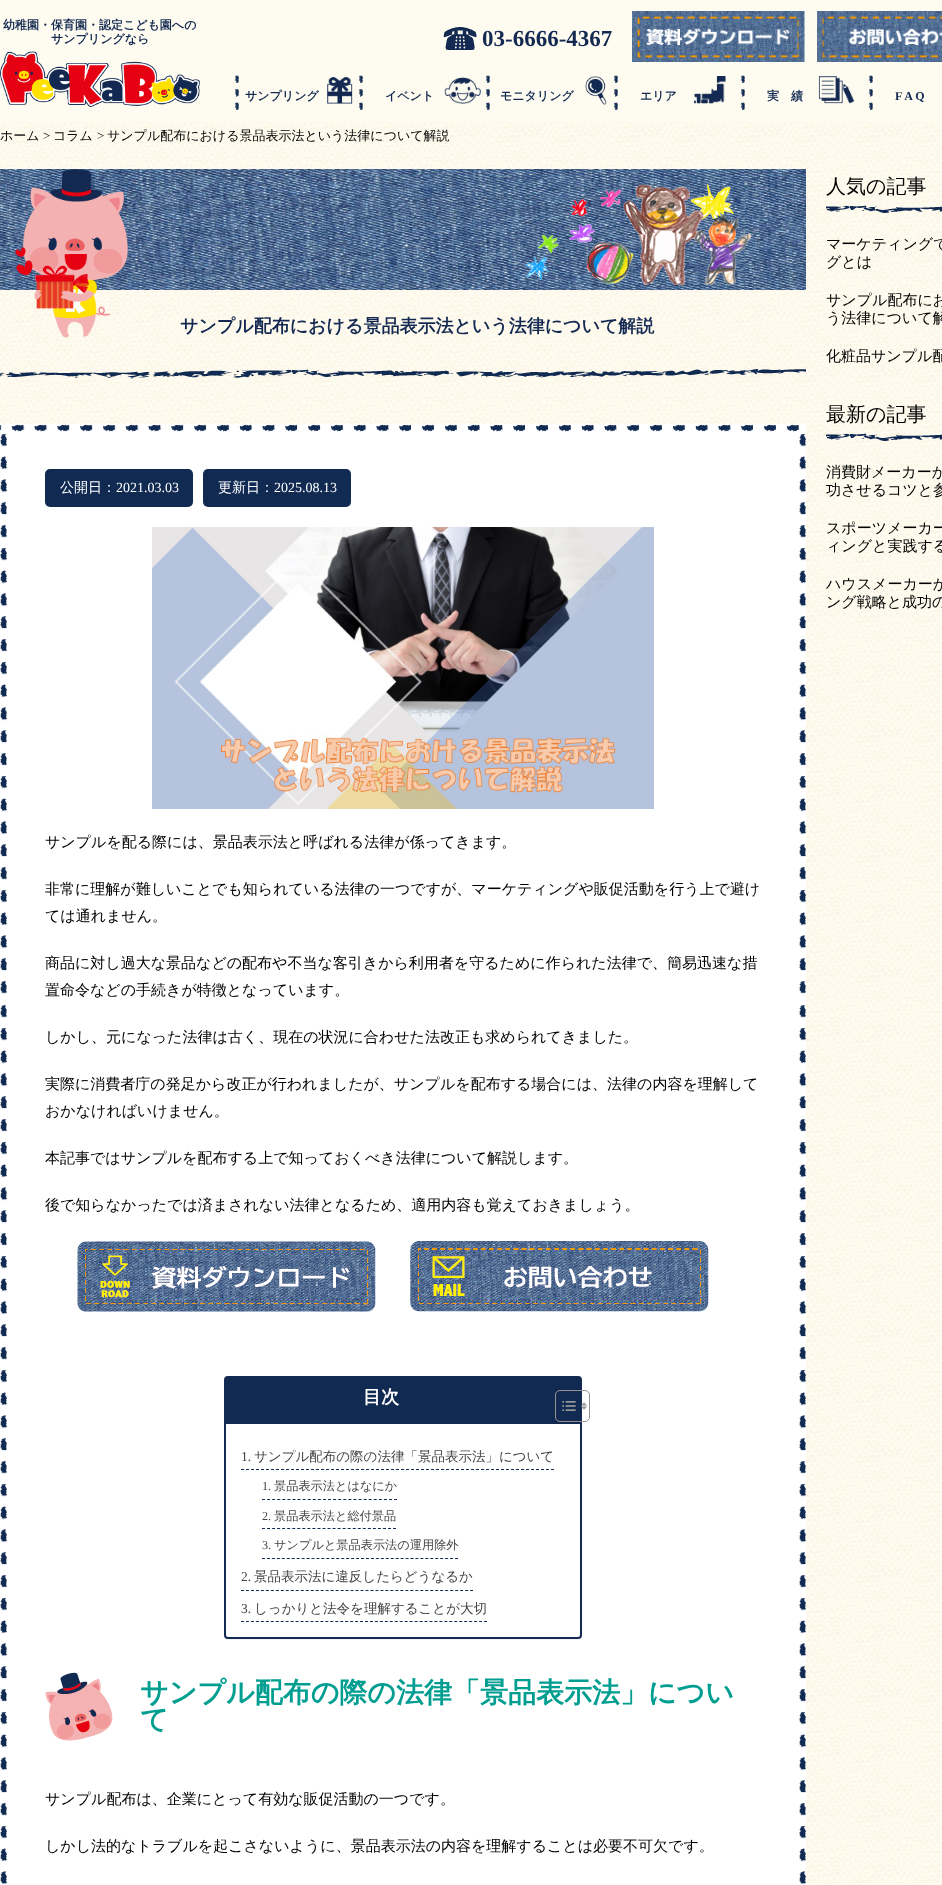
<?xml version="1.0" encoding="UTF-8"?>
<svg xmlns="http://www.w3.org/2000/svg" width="942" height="1885">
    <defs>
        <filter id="blur1" x="-50%" y="-200%" width="200%" height="500%"><feGaussianBlur stdDeviation="0.5"/></filter>
    </defs>
    <rect width="100%" height="100%" fill="#FFFFFF"/>
    <image x="0" y="122" width="942" height="1763" href="img_01.png"/>
    <rect x="0" y="0" width="942" height="122" fill="#FEFCF0"/>
    <text x="3" y="29" font-family="WenQuanYi Zen Hei" font-size="12" font-weight="700" fill="#142952">幼稚園・保育園・認定こども園への</text>
    <text x="51" y="43" font-family="WenQuanYi Zen Hei" font-size="12" font-weight="700" fill="#142952">サンプリングなら</text>
    <image x="0" y="51" width="200" height="56" href="img_02.png"/>
    <image x="443" y="27" width="34" height="23" href="img_03.png"/>
    <text x="482" y="46" font-family="Liberation Serif" font-size="23" font-weight="700" fill="#142952">03-6666-4367</text>
    <image x="632" y="11" width="173" height="51" href="img_04.png"/>
    <image x="817" y="11" width="125" height="51" href="img_05.png"/>
    <image x="327" y="77" width="26" height="27" href="img_06.png"/>
    <image x="235" y="75" width="4" height="35" href="img_07.png"/>
    <text x="245" y="100" font-family="WenQuanYi Zen Hei" font-size="12" font-weight="700" fill="#142952">サンプリング</text>
    <image x="359" y="75" width="4" height="35" href="img_07.png"/>
    <image x="444" y="77" width="37" height="27" href="img_08.png"/>
    <text x="385" y="100" font-family="WenQuanYi Zen Hei" font-size="12" font-weight="700" fill="#142952">イベント</text>
    <image x="486" y="75" width="4" height="35" href="img_07.png"/>
    <image x="585" y="76" width="22" height="29" href="img_09.png"/>
    <text x="500" y="100" font-family="WenQuanYi Zen Hei" font-size="12" font-weight="700" fill="#142952">モニタリング</text>
    <image x="614" y="75" width="4" height="35" href="img_07.png"/>
    <image x="694" y="76" width="32" height="28" href="img_10.png"/>
    <text x="640" y="100" font-family="WenQuanYi Zen Hei" font-size="12" font-weight="700" fill="#142952">エリア</text>
    <image x="741" y="75" width="4" height="35" href="img_07.png"/>
    <image x="818" y="76" width="36" height="28" href="img_11.png"/>
    <text x="767" y="100" font-family="WenQuanYi Zen Hei" font-size="12" font-weight="700" fill="#142952">実　績</text>
    <image x="869" y="75" width="4" height="35" href="img_07.png"/>
    <text x="895" y="100" font-family="Liberation Serif" font-size="12" font-weight="700" fill="#142952">F A Q</text>
    <text x="0" y="140" font-family="WenQuanYi Zen Hei" font-size="13" font-weight="500" fill="#000000">ホーム</text>
    <text x="43" y="140" font-family="Liberation Serif" font-size="13" fill="#000000">&gt;</text>
    <text x="53" y="140" font-family="WenQuanYi Zen Hei" font-size="13" font-weight="500" fill="#000000">コラム</text>
    <text x="97" y="140" font-family="Liberation Serif" font-size="13" fill="#000000">&gt;</text>
    <text x="107" y="140" font-family="WenQuanYi Zen Hei" font-size="13" font-weight="500" fill="#000000">サンプル配布における景品表示法という法律について解説</text>
    <image x="0" y="169" width="806" height="210" href="img_12.png"/>
    <text x="180" y="332" font-family="WenQuanYi Zen Hei" font-size="18" font-weight="700" fill="#142952">サンプル配布における景品表示法という法律について解説</text>
    <rect x="0" y="424" width="806" height="1461" fill="#FFFFFF"/>
    <image x="0" y="424" width="806" height="1461" href="img_13.png"/>
    <rect x="45" y="469" width="148" height="38" rx="5" fill="#112A52"/>
    <text x="60" y="492" font-family="WenQuanYi Zen Hei" font-size="14" font-weight="500" fill="#FFFFFF">公開日：</text>
    <text x="116" y="492" font-family="Liberation Serif" font-size="14" fill="#FFFFFF">2021.03.03</text>
    <rect x="203" y="469" width="148" height="38" rx="5" fill="#112A52"/>
    <text x="218" y="492" font-family="WenQuanYi Zen Hei" font-size="14" font-weight="500" fill="#FFFFFF">更新日：</text>
    <text x="274" y="492" font-family="Liberation Serif" font-size="14" fill="#FFFFFF">2025.08.13</text>
    <image x="152" y="527" width="502" height="282" href="img_14.png"/>
    <text x="45" y="847" font-family="WenQuanYi Zen Hei" font-size="15" font-weight="500" fill="#000000">サンプルを配る際には、景品表示法と呼ばれる法律が係ってきます。</text>
    <text font-family="WenQuanYi Zen Hei" font-size="15" font-weight="500" fill="#000000">
        <tspan x="45" y="894">非常に理解が難しいことでも知られている法律の一つですが、マーケティングや販促活動を行う上で避け</tspan>
        <tspan x="45" y="921">ては通れません。</tspan>
    </text>
    <text font-family="WenQuanYi Zen Hei" font-size="15" font-weight="500" fill="#000000">
        <tspan x="45" y="968">商品に対し過大な景品などの配布や不当な客引きから利用者を守るために作られた法律で、簡易迅速な措</tspan>
        <tspan x="45" y="995">置命令などの手続きが特徴となっています。</tspan>
    </text>
    <text x="45" y="1042" font-family="WenQuanYi Zen Hei" font-size="15" font-weight="500" fill="#000000">しかし、元になった法律は古く、現在の状況に合わせた法改正も求められてきました。</text>
    <text font-family="WenQuanYi Zen Hei" font-size="15" font-weight="500" fill="#000000">
        <tspan x="45" y="1089">実際に消費者庁の発足から改正が行われましたが、サンプルを配布する場合には、法律の内容を理解して</tspan>
        <tspan x="45" y="1116">おかなければいけません。</tspan>
    </text>
    <text x="45" y="1163" font-family="WenQuanYi Zen Hei" font-size="15" font-weight="500" fill="#000000">本記事ではサンプルを配布する上で知っておくべき法律について解説します。</text>
    <text x="45" y="1210" font-family="WenQuanYi Zen Hei" font-size="15" font-weight="500" fill="#000000">後で知らなかったでは済まされない法律となるため、適用内容も覚えておきましょう。</text>
    <image x="77" y="1241" width="299" height="71" href="img_15.png"/>
    <image x="410" y="1241" width="299" height="71" href="img_16.png"/>
    <rect x="224" y="1377" width="358" height="263" rx="4" fill="#000000" fill-opacity="0.05" filter="url(#blur1)"/>
    <rect x="225" y="1377" width="356" height="261" rx="3" fill="#FFFFFF" stroke="#112A52" stroke-width="2"/>
    <rect x="226" y="1378" width="354" height="46" fill="#112A52"/>
    <text x="363" y="1403" font-family="WenQuanYi Zen Hei" font-size="18" font-weight="700" fill="#FFFFFF">目次</text>
    <rect x="555.5" y="1390.5" width="34" height="31" rx="4.5" fill="none" stroke="#999191"/>
    <image x="562" y="1401" width="14" height="10" href="img_17.png"/>
    <image x="581" y="1402" width="6" height="8" href="img_18.png"/>
    <path d="M 241 1469.5 H 554" fill="none" stroke="#112A52" stroke-dasharray="3 2"/>
    <text x="241" y="1461" font-family="Liberation Serif" font-size="13.5" fill="#444444">1.</text>
    <text x="254" y="1461" font-family="WenQuanYi Zen Hei" font-size="13.5" font-weight="500" fill="#444444">サンプル配布の際の法律「景品表示法」について</text>
    <path d="M 262 1499.5 H 397" fill="none" stroke="#112A52" stroke-dasharray="3 2.08"/>
    <text x="262" y="1490" font-family="Liberation Serif" font-size="12.2" fill="#444444">1.</text>
    <text x="274" y="1490" font-family="WenQuanYi Zen Hei" font-size="12.2" font-weight="500" fill="#444444">景品表示法とはなにか</text>
    <path d="M 262 1528.5 H 396" fill="none" stroke="#112A52" stroke-dasharray="3 2.04"/>
    <text x="262" y="1520" font-family="Liberation Serif" font-size="12.2" fill="#444444">2.</text>
    <text x="274" y="1520" font-family="WenQuanYi Zen Hei" font-size="12.2" font-weight="500" fill="#444444">景品表示法と総付景品</text>
    <path d="M 262 1558.5 H 458" fill="none" stroke="#112A52" stroke-dasharray="3 1.95"/>
    <text x="262" y="1549" font-family="Liberation Serif" font-size="12.2" fill="#444444">3.</text>
    <text x="274" y="1549" font-family="WenQuanYi Zen Hei" font-size="12.2" font-weight="500" fill="#444444">サンプルと景品表示法の運用除外</text>
    <path d="M 241 1590.5 H 473" fill="none" stroke="#112A52" stroke-dasharray="3 1.98"/>
    <text x="241" y="1581" font-family="Liberation Serif" font-size="13.5" fill="#444444">2.</text>
    <text x="254" y="1581" font-family="WenQuanYi Zen Hei" font-size="13.5" font-weight="500" fill="#444444">景品表示法に違反したらどうなるか</text>
    <path d="M 241 1621.5 H 487" fill="none" stroke="#112A52" stroke-dasharray="3 1.96"/>
    <text x="241" y="1613" font-family="Liberation Serif" font-size="13.5" fill="#444444">3.</text>
    <text x="254" y="1613" font-family="WenQuanYi Zen Hei" font-size="13.5" font-weight="500" fill="#444444">しっかりと法令を理解することが大切</text>
    <image x="45" y="1672" width="68" height="69" href="img_19.png"/>
    <text font-family="WenQuanYi Zen Hei" font-size="28" font-weight="700" fill="#009E91">
        <tspan x="140" y="1702">サンプル配布の際の法律「景品表示法」につい</tspan>
        <tspan x="140" y="1729">て</tspan>
    </text>
    <text x="45" y="1804" font-family="WenQuanYi Zen Hei" font-size="15" font-weight="500" fill="#000000">サンプル配布は、企業にとって有効な販促活動の一つです。</text>
    <text x="45" y="1851" font-family="WenQuanYi Zen Hei" font-size="15" font-weight="500" fill="#000000">しかし法的なトラブルを起こさないように、景品表示法の内容を理解することは必要不可欠です。</text>
    <image x="826" y="205" width="116" height="8" href="img_20.png"/>
    <text x="826" y="193" font-family="WenQuanYi Zen Hei" font-size="20" font-weight="500" fill="#000000">人気の記事</text>
    <text font-family="WenQuanYi Zen Hei" font-size="15" font-weight="500" fill="#000000">
        <tspan x="826" y="249">マーケティングで</tspan>
        <tspan x="826" y="267">グとは</tspan>
    </text>
    <text font-family="WenQuanYi Zen Hei" font-size="15" font-weight="500" fill="#000000">
        <tspan x="826" y="305">サンプル配布にお</tspan>
        <tspan x="826" y="323">う法律について解</tspan>
    </text>
    <text x="826" y="361" font-family="WenQuanYi Zen Hei" font-size="15" font-weight="500" fill="#000000">化粧品サンプル配</text>
    <image x="826" y="433" width="116" height="8" href="img_21.png"/>
    <text x="826" y="421" font-family="WenQuanYi Zen Hei" font-size="20" font-weight="500" fill="#000000">最新の記事</text>
    <text font-family="WenQuanYi Zen Hei" font-size="15" font-weight="500" fill="#000000">
        <tspan x="826" y="477">消費財メーカーが</tspan>
        <tspan x="826" y="495">功させるコツと参</tspan>
    </text>
    <text font-family="WenQuanYi Zen Hei" font-size="15" font-weight="500" fill="#000000">
        <tspan x="826" y="533">スポーツメーカー</tspan>
        <tspan x="826" y="551">ィングと実践する</tspan>
    </text>
    <text font-family="WenQuanYi Zen Hei" font-size="15" font-weight="500" fill="#000000">
        <tspan x="826" y="589">ハウスメーカーが</tspan>
        <tspan x="826" y="607">ング戦略と成功の</tspan>
    </text>
</svg>
